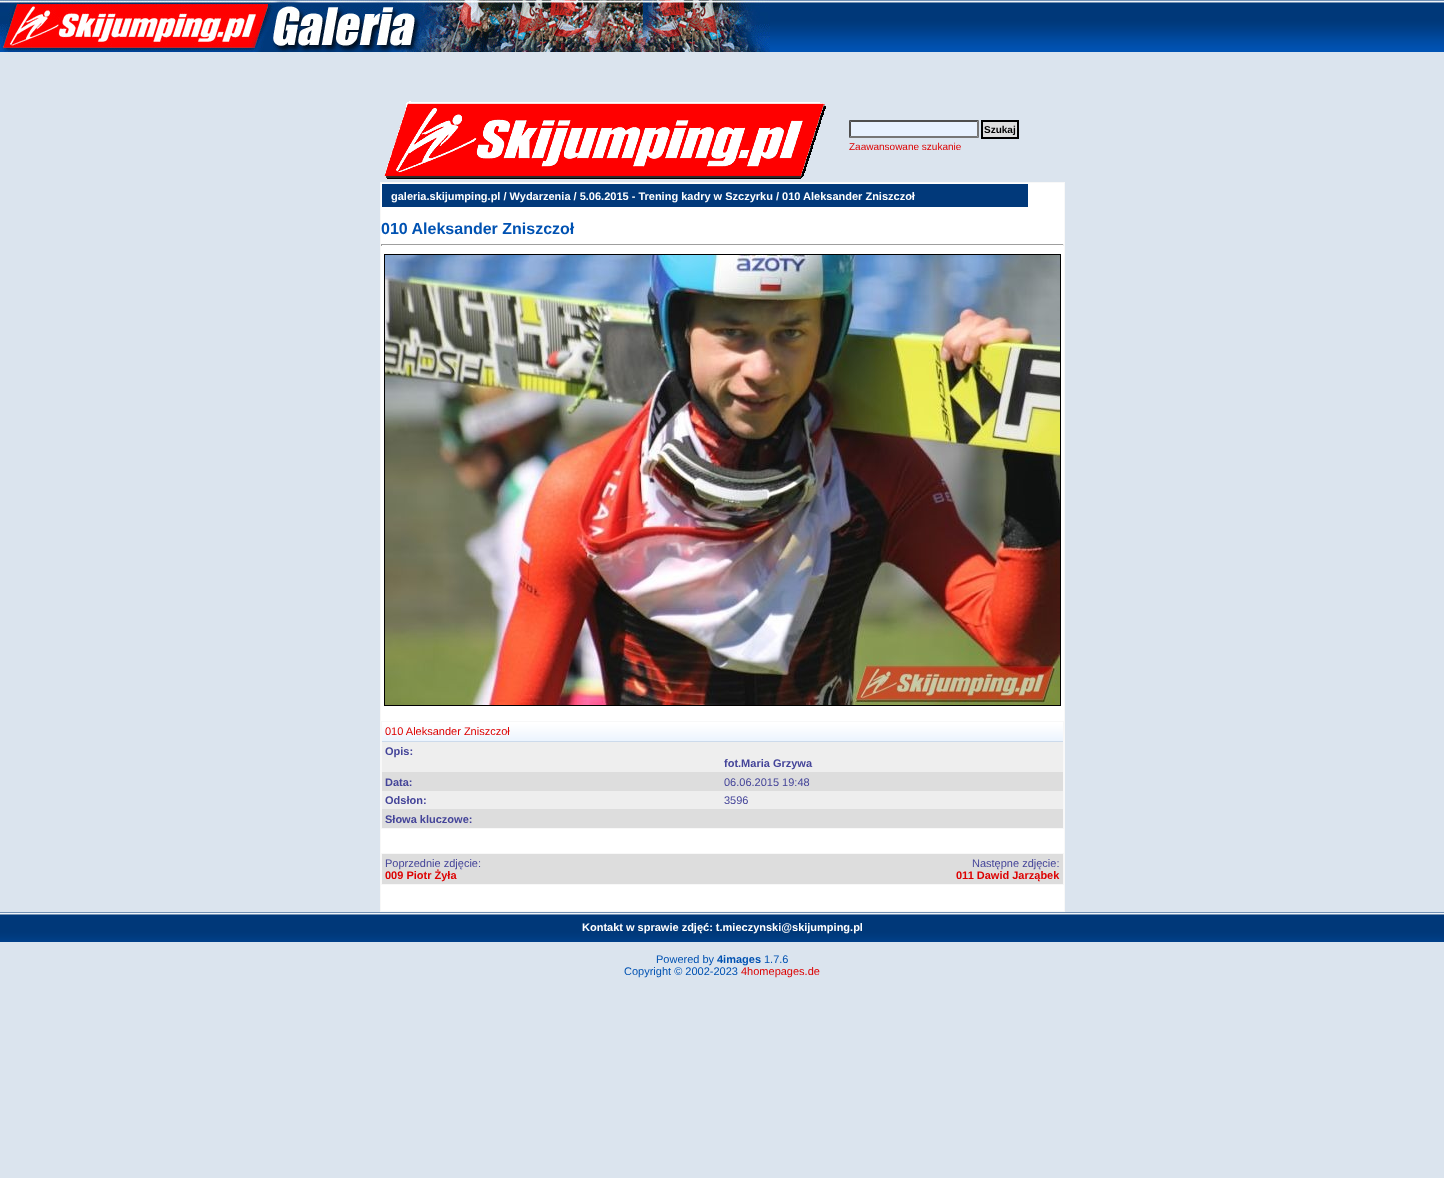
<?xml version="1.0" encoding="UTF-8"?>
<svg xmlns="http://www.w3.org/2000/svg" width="1444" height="1178">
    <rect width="100%" height="100%" fill="#DBE4EE"/>
    <image x="770" y="0" width="674" height="52" href="img_01.png"/>
    <image x="0" y="0" width="770" height="52" href="img_02.png"/>
    <image x="384" y="101" width="442" height="78" href="img_03.png"/>
    <rect x="849" y="120" width="130" height="18" fill="#E7F1FE"/>
    <path d="M 849 120 H 979 L 977 122 H 851 Z" fill="#4F4F4F"/>
    <path d="M 979 120 V 138 L 977 136 V 122 Z" fill="#767676"/>
    <path d="M 979 138 H 849 L 851 136 H 977 Z" fill="#767676"/>
    <path d="M 849 138 V 120 L 851 122 V 136 Z" fill="#4F4F4F"/>
    <rect x="982" y="121" width="36" height="17" fill="#DDDDDD" stroke="#000000" stroke-width="2"/>
    <text x="984" y="133" font-family="Liberation Sans" font-size="10" font-weight="700" fill="#000000">Szukaj</text>
    <text x="849" y="150" font-family="Liberation Sans" font-size="10" fill="#DD0000">Zaawansowane szukanie</text>
    <rect x="380" y="182" width="685" height="730" fill="#F8F8F8"/>
    <rect x="381" y="183" width="683" height="728" fill="#FFFFFF"/>
    <rect x="382" y="184" width="646" height="23" fill="#01397A"/>
    <text x="391" y="200" font-family="Liberation Sans" font-size="11" font-weight="700" fill="#FFFFFF">galeria.skijumping.pl / Wydarzenia / 5.06.2015 - Trening kadry w Szczyrku / 010 Aleksander Zniszczoł</text>
    <text x="381" y="234" font-family="Liberation Sans" font-size="16" font-weight="700" fill="#0052B2">010 Aleksander Zniszczoł</text>
    <rect x="381" y="244" width="683" height="1" fill="#9F9F9F"/>
    <rect x="1063" y="244" width="1" height="2" fill="#EEEEEE"/>
    <rect x="381" y="244" width="1" height="2" fill="#9F9F9F"/>
    <rect x="384.5" y="254.5" width="676" height="451" fill="none" stroke="#000000"/>
    <image x="385" y="255" width="675" height="450" href="img_04.png"/>
    <rect x="381" y="721" width="683" height="108" fill="#F8F8F8"/>
    <image x="382" y="722" width="681" height="19" href="img_05.png"/>
    <rect x="382" y="741" width="681" height="1" fill="#CCDAEB"/>
    <text x="385" y="735" font-family="Liberation Sans" font-size="11" fill="#DD0000">010 Aleksander Zniszczoł</text>
    <rect x="382" y="742" width="681" height="30" fill="#EEEEEE"/>
    <rect x="382" y="772" width="681" height="1" fill="#DDDDDD"/>
    <text x="385" y="755" font-family="Liberation Sans" font-size="11" font-weight="700" fill="#444499">Opis:</text>
    <text x="724" y="767" font-family="Liberation Sans" font-size="11" font-weight="700" fill="#444499">fot.Maria Grzywa</text>
    <rect x="382" y="773" width="681" height="18" fill="#DDDDDD"/>
    <text x="385" y="786" font-family="Liberation Sans" font-size="11" font-weight="700" fill="#444499">Data:</text>
    <text x="724" y="786" font-family="Liberation Sans" font-size="11" fill="#444499">06.06.2015 19:48</text>
    <rect x="382" y="791" width="681" height="18" fill="#EEEEEE"/>
    <rect x="382" y="809" width="681" height="1" fill="#DDDDDD"/>
    <text x="385" y="804" font-family="Liberation Sans" font-size="11" font-weight="700" fill="#444499">Odsłon:</text>
    <text x="724" y="804" font-family="Liberation Sans" font-size="11" fill="#444499">3596</text>
    <rect x="382" y="810" width="681" height="18" fill="#DDDDDD"/>
    <text x="385" y="823" font-family="Liberation Sans" font-size="11" font-weight="700" fill="#444499">Słowa kluczowe:</text>
    <rect x="381" y="853" width="683" height="32" fill="#F8F8F8"/>
    <rect x="382" y="854" width="681" height="30" fill="#DDDDDD"/>
    <text x="385" y="867" font-family="Liberation Sans" font-size="11" fill="#444499">Poprzednie zdjęcie:</text>
    <text x="385" y="879" font-family="Liberation Sans" font-size="11" font-weight="700" fill="#DD0000">009 Piotr Żyła</text>
    <text x="972" y="867" font-family="Liberation Sans" font-size="11" fill="#444499">Następne zdjęcie:</text>
    <text x="956" y="879" font-family="Liberation Sans" font-size="11" font-weight="700" fill="#DD0000">011 Dawid Jarząbek</text>
    <image x="0" y="912" width="1444" height="30" href="img_06.png"/>
    <text x="582" y="931" font-family="Liberation Sans" font-size="11" font-weight="700" fill="#FFFFFF">Kontakt w sprawie zdjęć: t.mieczynski@skijumping.pl</text>
    <text x="656" y="963" font-family="Liberation Sans" font-size="11" fill="#0052B2">Powered by</text>
    <text x="717" y="963" font-family="Liberation Sans" font-size="11" font-weight="700" fill="#0052B2">4images</text>
    <text x="764" y="963" font-family="Liberation Sans" font-size="11" fill="#0052B2">1.7.6</text>
    <text x="624" y="975" font-family="Liberation Sans" font-size="11" fill="#0052B2">Copyright © 2002-2023</text>
    <text x="741" y="975" font-family="Liberation Sans" font-size="11" fill="#DD0000">4homepages.de</text>
</svg>
